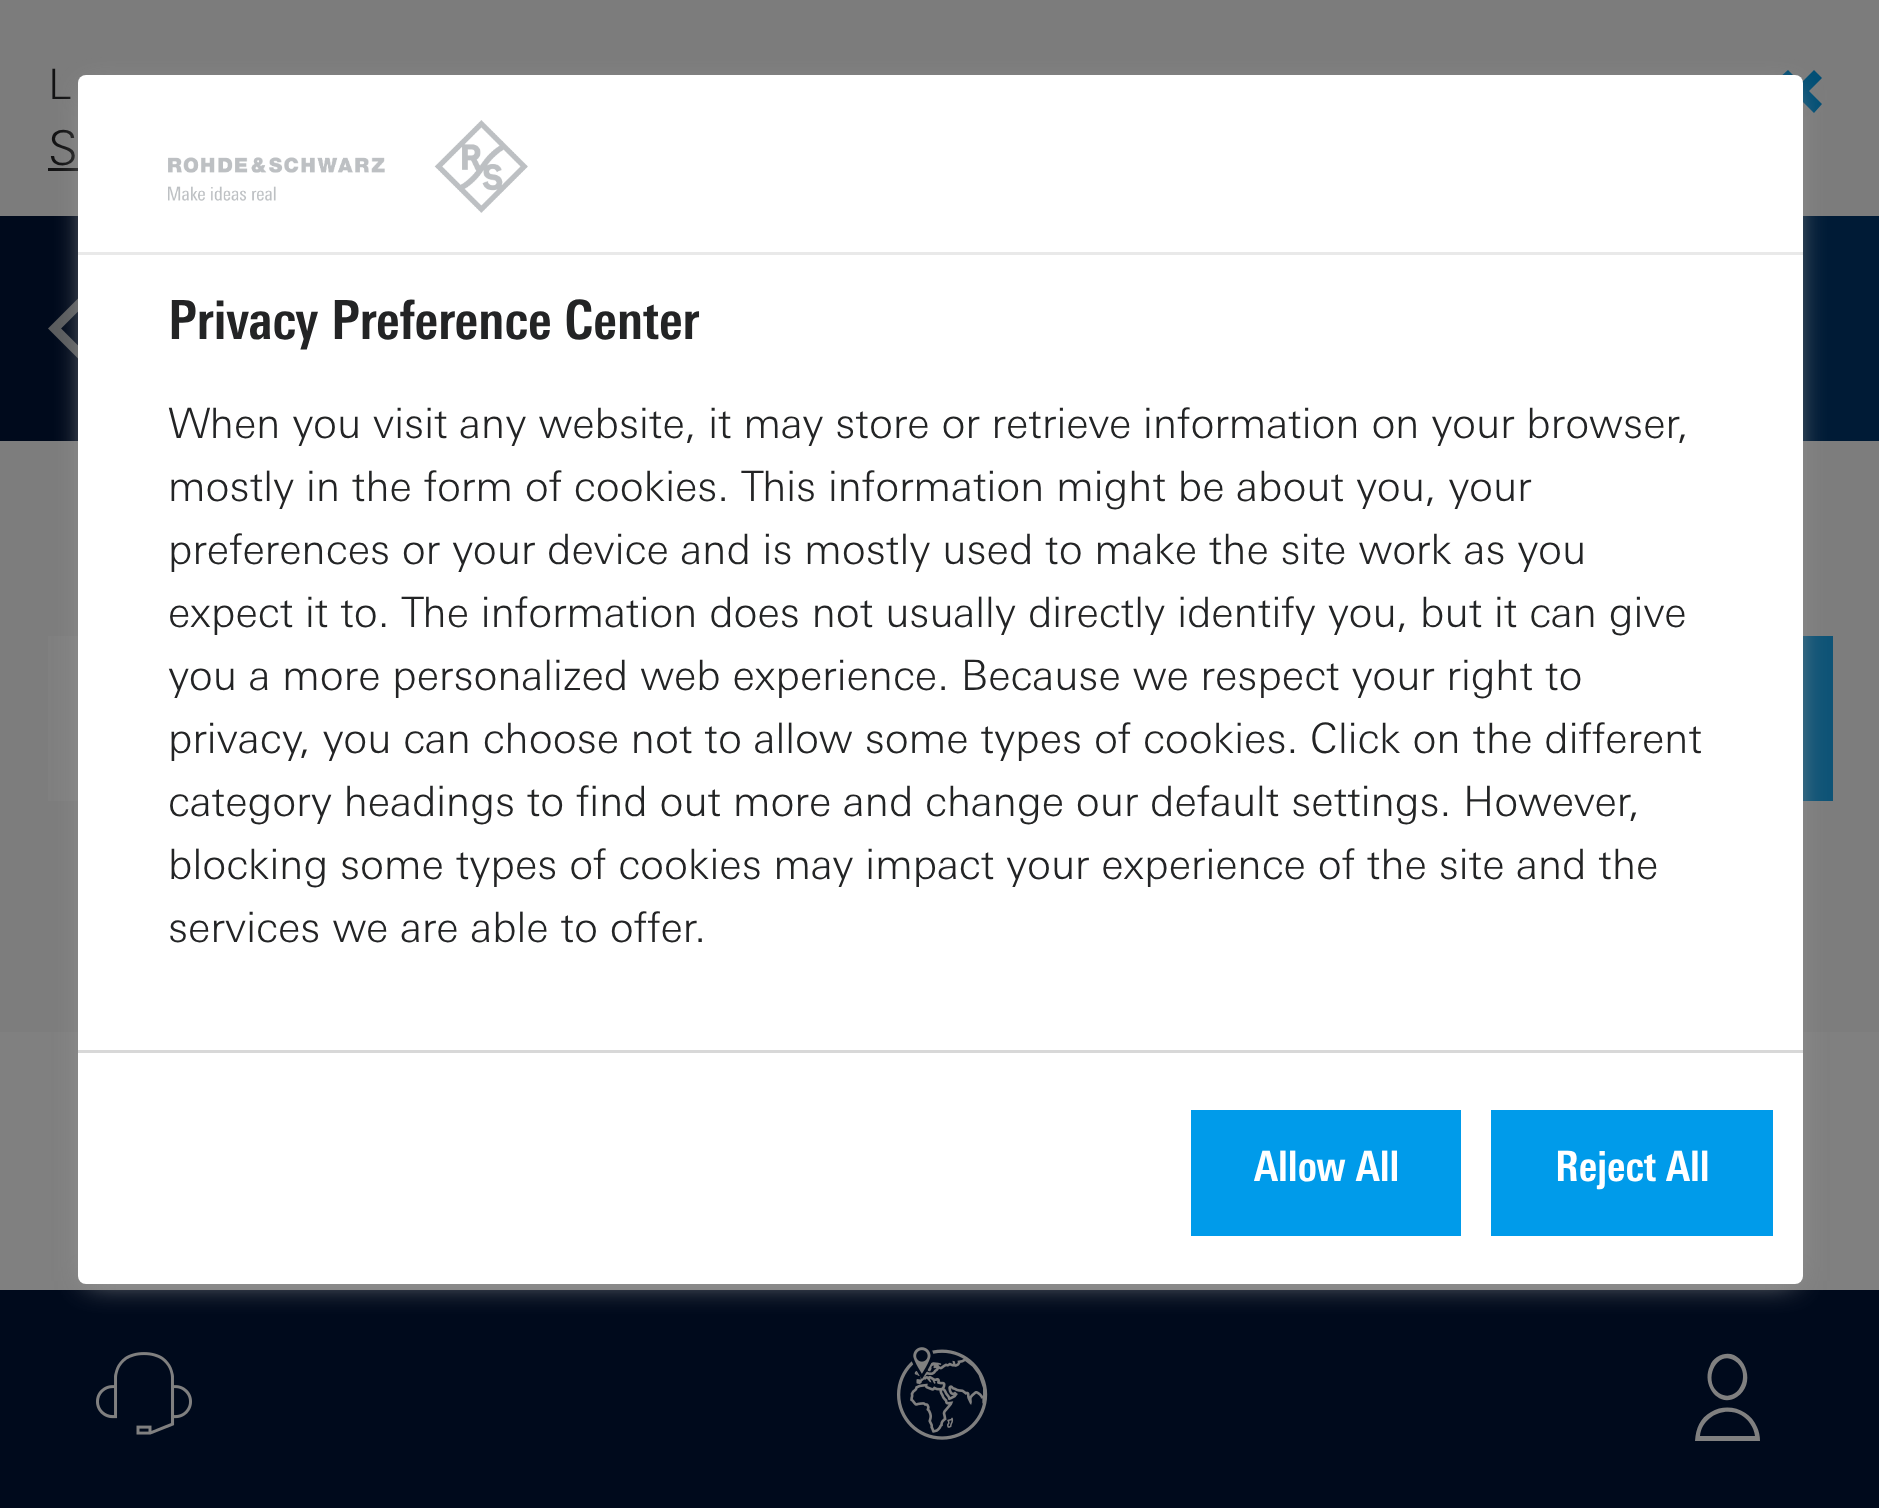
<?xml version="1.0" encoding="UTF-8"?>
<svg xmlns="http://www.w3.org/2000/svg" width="1879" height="1508">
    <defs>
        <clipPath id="clip1"><rect x="0" y="216" width="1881" height="225"/></clipPath>
        <filter id="blur1" x="-50%" y="-200%" width="200%" height="500%"><feGaussianBlur stdDeviation="15"/></filter>
    </defs>
    <rect width="100%" height="100%" fill="#808080"/>
    <rect x="0" y="0" width="1879" height="216" fill="#7C7C7C"/>
    <text x="48" y="99" font-family="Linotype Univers" font-size="42" font-weight="300" fill="#121213">L</text>
    <path d="M 1809 91 L 1822 104 L 1814 113 L 1801 100 L 1788 113 L 1779 104 L 1792 91 L 1779 78 L 1788 70 L 1801 83 L 1814 70 L 1822 78 Z" fill="#004E75"/>
    <text x="48" y="165" font-family="Linotype Univers" font-size="48" font-weight="300" fill="#121213">S</text>
    <rect x="48" y="168" width="30" height="3" fill="#121213"/>
    <rect x="0" y="216" width="78" height="225" fill="#000A1C"/>
    <g clip-path="url(#clip1)">
        <path d="M 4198 904 L 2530 -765 L 862 904 L 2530 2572 Z" fill="#001B36"/>
    </g>
    <image x="48" y="298" width="30" height="61" href="img_01.png"/>
    <rect x="0" y="1290" width="1879" height="218" fill="#000A1C"/>
    <image x="96" y="1352" width="96" height="83" href="img_02.png"/>
    <image x="897" y="1347" width="91" height="93" href="img_03.png"/>
    <path d="M 1717 1357 C 1714 1359 1711 1362 1710 1366 C 1701 1384 1718 1409 1737 1397 C 1760 1382 1741 1342 1717 1357 Z M 1735 1361 C 1753 1373 1738 1405 1719 1393 C 1702 1381 1717 1349 1735 1361 Z M 1711 1412 C 1700 1418 1696 1428 1695 1441 H 1760 C 1760 1436 1759 1431 1757 1427 C 1750 1409 1727 1402 1711 1412 Z M 1741 1415 C 1748 1419 1754 1427 1755 1436 H 1700 C 1702 1417 1724 1406 1741 1415 Z" fill="#808080"/>
    <rect x="0" y="441" width="1879" height="591" fill="#7D7D7D"/>
    <rect x="48" y="636" width="30" height="165" fill="#808080"/>
    <rect x="1803" y="636" width="30" height="165" fill="#0E5376"/>
    <rect x="87" y="90" width="1707" height="1191" fill="#999999" filter="url(#blur1)"/>
    <rect x="78" y="75" width="1725" height="1209" rx="8" fill="#FFFFFF"/>
    <rect x="78" y="252" width="1725" height="3" fill="#E9E9E9"/>
    <image x="168" y="120" width="360" height="93" href="img_04.png"/>
    <text x="168" y="339" font-family="Linotype Univers" font-size="54" font-weight="700" fill="#232425">Privacy Preference Center</text>
    <text font-family="Linotype Univers" font-size="42" font-weight="300" fill="#232425">
        <tspan x="168" y="438">When you visit any website, it may store or retrieve information on your browser,</tspan>
        <tspan x="168" y="501">mostly in the form of cookies. This information might be about you, your</tspan>
        <tspan x="168" y="564">preferences or your device and is mostly used to make the site work as you</tspan>
        <tspan x="168" y="627">expect it to. The information does not usually directly identify you, but it can give</tspan>
        <tspan x="168" y="690">you a more personalized web experience. Because we respect your right to</tspan>
        <tspan x="168" y="753">privacy, you can choose not to allow some types of cookies. Click on the different</tspan>
        <tspan x="168" y="816">category headings to find out more and change our default settings. However,</tspan>
        <tspan x="168" y="879">blocking some types of cookies may impact your experience of the site and the</tspan>
        <tspan x="168" y="942">services we are able to offer.</tspan>
    </text>
    <rect x="78" y="1050" width="1725" height="3" fill="#D8D8D8"/>
    <rect x="1191" y="1110" width="270" height="126" fill="#009BEA"/>
    <text x="1254" y="1181" font-family="Linotype Univers" font-size="42" font-weight="700" fill="#FFFFFF">Allow All</text>
    <rect x="1491" y="1110" width="282" height="126" fill="#009BEA"/>
    <text x="1555" y="1181" font-family="Linotype Univers" font-size="42" font-weight="700" fill="#FFFFFF">Reject All</text>
</svg>
